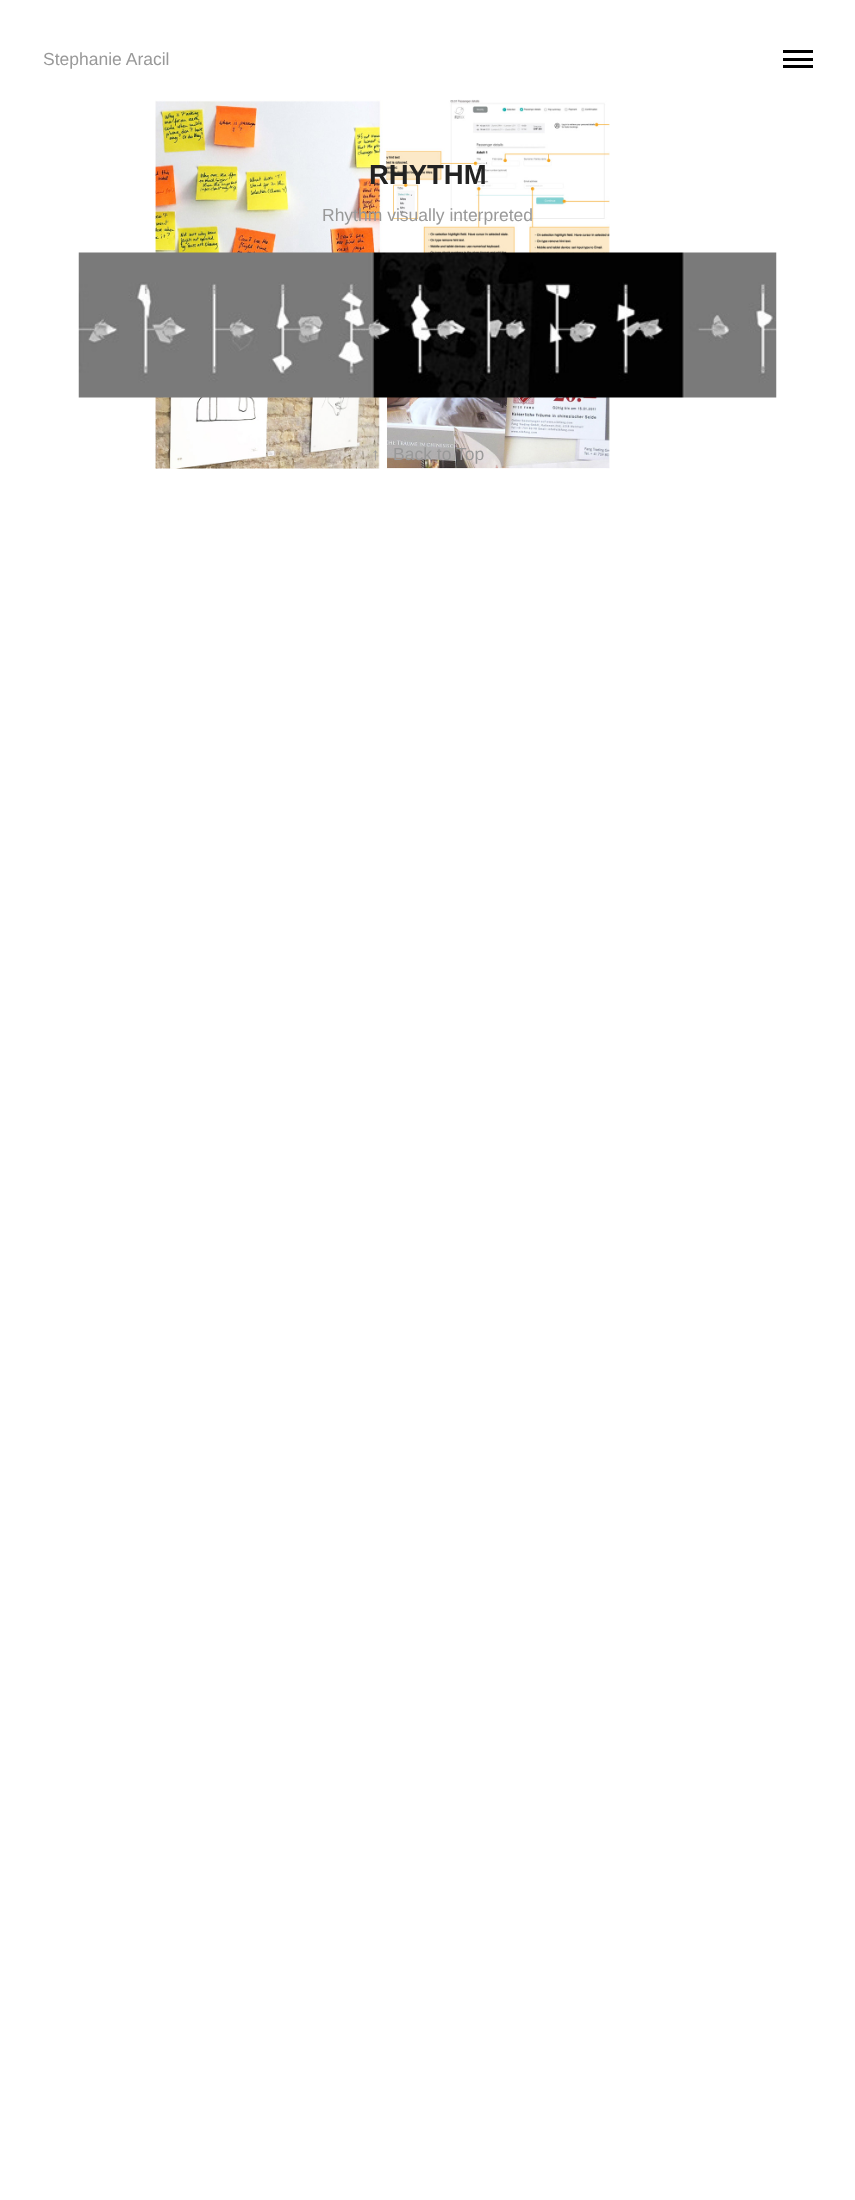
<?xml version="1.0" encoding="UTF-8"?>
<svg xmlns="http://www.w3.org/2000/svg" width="855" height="2200">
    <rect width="100%" height="100%" fill="#FFFFFF"/>
    <image x="155" y="99" width="455" height="370" href="img_01.png"/>
    <text x="43" y="65" font-family="Liberation Sans" font-size="17.5" fill="#999999">Stephanie Aracil</text>
    <rect x="783" y="50" width="30" height="3" fill="#000000"/>
    <rect x="783" y="58" width="30" height="3" fill="#000000"/>
    <rect x="783" y="65" width="30" height="3" fill="#000000"/>
    <text x="369" y="184" font-family="Liberation Sans" font-size="27.5" font-weight="700" fill="#222222">RHYTHM</text>
    <text x="322" y="221" font-family="Liberation Sans" font-size="17.5" fill="#999999">Rhythm visually interpreted</text>
    <image x="78" y="252" width="699" height="146" href="img_02.png"/>
    <text x="371" y="460" font-family="Liberation Sans" font-size="17.5" fill="#999999">↑</text>
    <text x="393" y="460" font-family="Liberation Sans" font-size="17.5" fill="#999999">Back to Top</text>
</svg>
